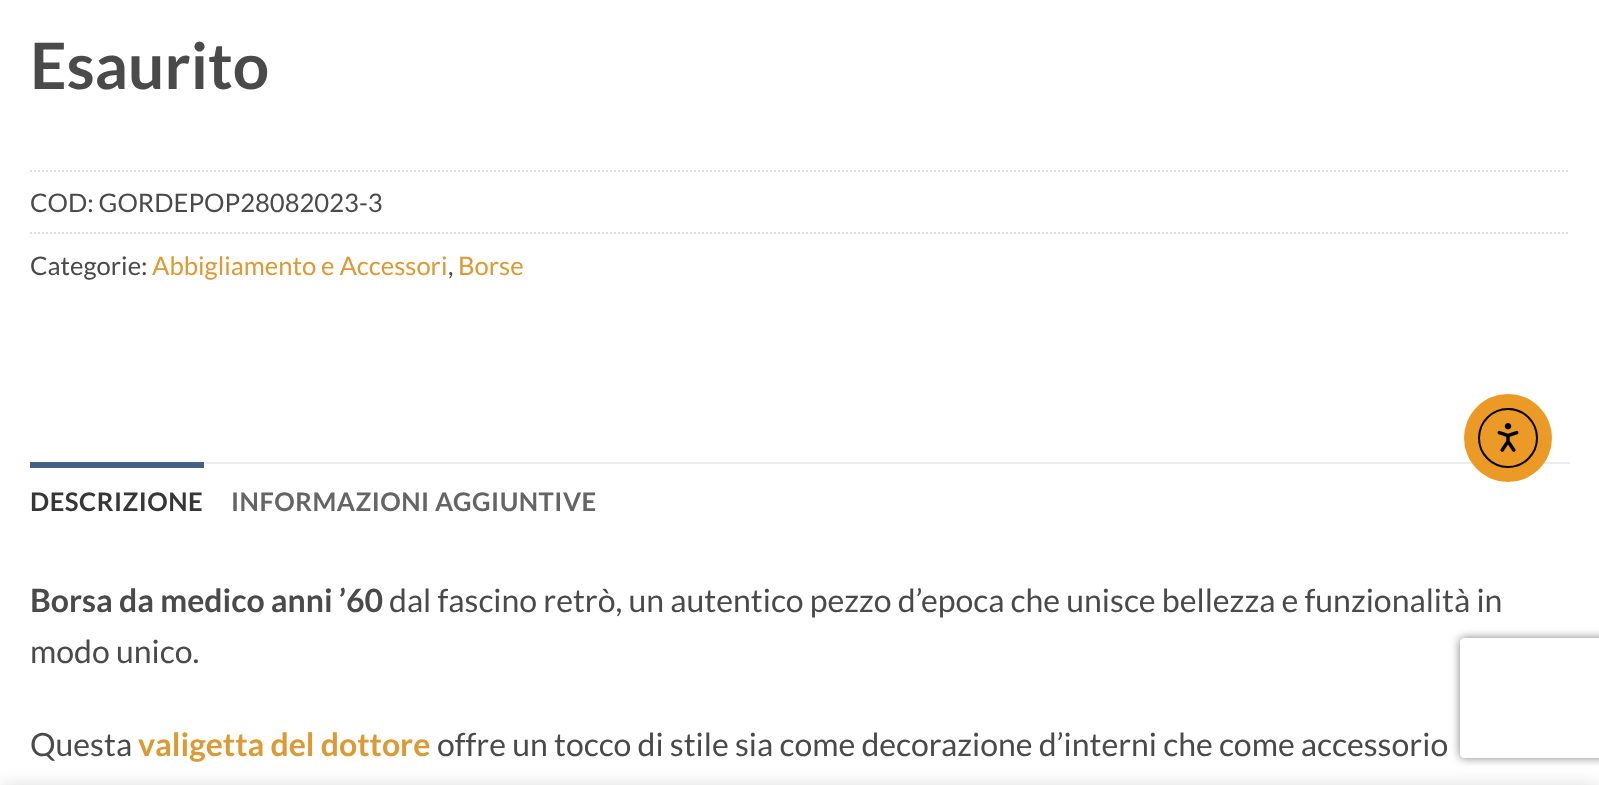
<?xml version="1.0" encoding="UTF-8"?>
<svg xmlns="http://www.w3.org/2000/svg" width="1599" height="785">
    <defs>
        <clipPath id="clip1"><path d="M 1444 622 H 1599 V 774 H 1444 Z M 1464 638 H 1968 C 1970 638 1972 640 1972 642 V 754 C 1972 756 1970 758 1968 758 H 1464 C 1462 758 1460 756 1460 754 V 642 C 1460 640 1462 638 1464 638 Z" clip-rule="evenodd"/></clipPath>
        <filter id="blur1" x="-50%" y="-200%" width="200%" height="500%"><feGaussianBlur stdDeviation="5"/></filter>
        <filter id="blur2" x="-50%" y="-200%" width="200%" height="500%"><feGaussianBlur stdDeviation="9"/></filter>
    </defs>
    <rect width="100%" height="100%" fill="#FFFFFF"/>
    <text x="30" y="89" font-family="Lato" font-size="64" font-weight="700" fill="#4A4A4A">Esaurito</text>
    <path d="M 30 171 H 1570" fill="none" stroke="#DDDDDD" stroke-width="2" stroke-dasharray="2 2"/>
    <text x="30" y="212" font-family="Lato" font-size="25.6" fill="#4A4A4A">COD: GORDEPOP28082023-3</text>
    <path d="M 30 233 H 1570" fill="none" stroke="#DDDDDD" stroke-width="2" stroke-dasharray="2 2"/>
    <text x="30" y="275" font-family="Lato" font-size="25.6" fill="#4A4A4A">Categorie:</text>
    <text x="152" y="275" font-family="Lato" font-size="25.6" fill="#DD9933">Abbigliamento e Accessori</text>
    <text x="448" y="275" font-family="Lato" font-size="25.6" fill="#4A4A4A">,</text>
    <text x="458" y="275" font-family="Lato" font-size="25.6" fill="#DD9933">Borse</text>
    <rect x="204" y="462" width="1366" height="2" fill="#ECECEC"/>
    <rect x="30" y="462" width="174" height="6" fill="#446084"/>
    <text x="30" y="511" font-family="Lato" font-size="25.6" font-weight="700" letter-spacing="0.5" fill="#363636">DESCRIZIONE</text>
    <text x="231" y="511" font-family="Lato" font-size="25.6" font-weight="700" letter-spacing="0.5" fill="#656565">INFORMAZIONI AGGIUNTIVE</text>
    <text x="30" y="612" font-family="Lato" font-size="32" font-weight="700" fill="#4A4A4A">Borsa da medico anni ’60</text>
    <text x="389" y="612" font-family="Lato" font-size="32" fill="#4A4A4A">dal fascino retrò, un autentico pezzo d’epoca che unisce bellezza e funzionalità in</text>
    <text x="30" y="663" font-family="Lato" font-size="32" fill="#4A4A4A">modo unico.</text>
    <text x="30" y="756" font-family="Lato" font-size="32" fill="#4A4A4A">Questa</text>
    <text x="138" y="756" font-family="Lato" font-size="32" font-weight="700" fill="#DD9933">valigetta del dottore</text>
    <text x="437" y="756" font-family="Lato" font-size="32" fill="#4A4A4A">offre un tocco di stile sia come decorazione d’interni che come accessorio</text>
    <circle cx="1508" cy="438" r="44" fill="#EB9A26"/>
    <circle cx="1508" cy="438" r="29" fill="none" stroke="#000000" stroke-width="2"/>
    <image x="1497" y="423" width="22" height="29" href="img_01.png"/>
    <g clip-path="url(#clip1)">
        <rect x="1460" y="638" width="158" height="120" rx="4" fill="#808080" filter="url(#blur1)"/>
    </g>
    <rect x="0" y="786" width="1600" height="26" fill="#000000" fill-opacity="0.14" filter="url(#blur2)"/>
</svg>
